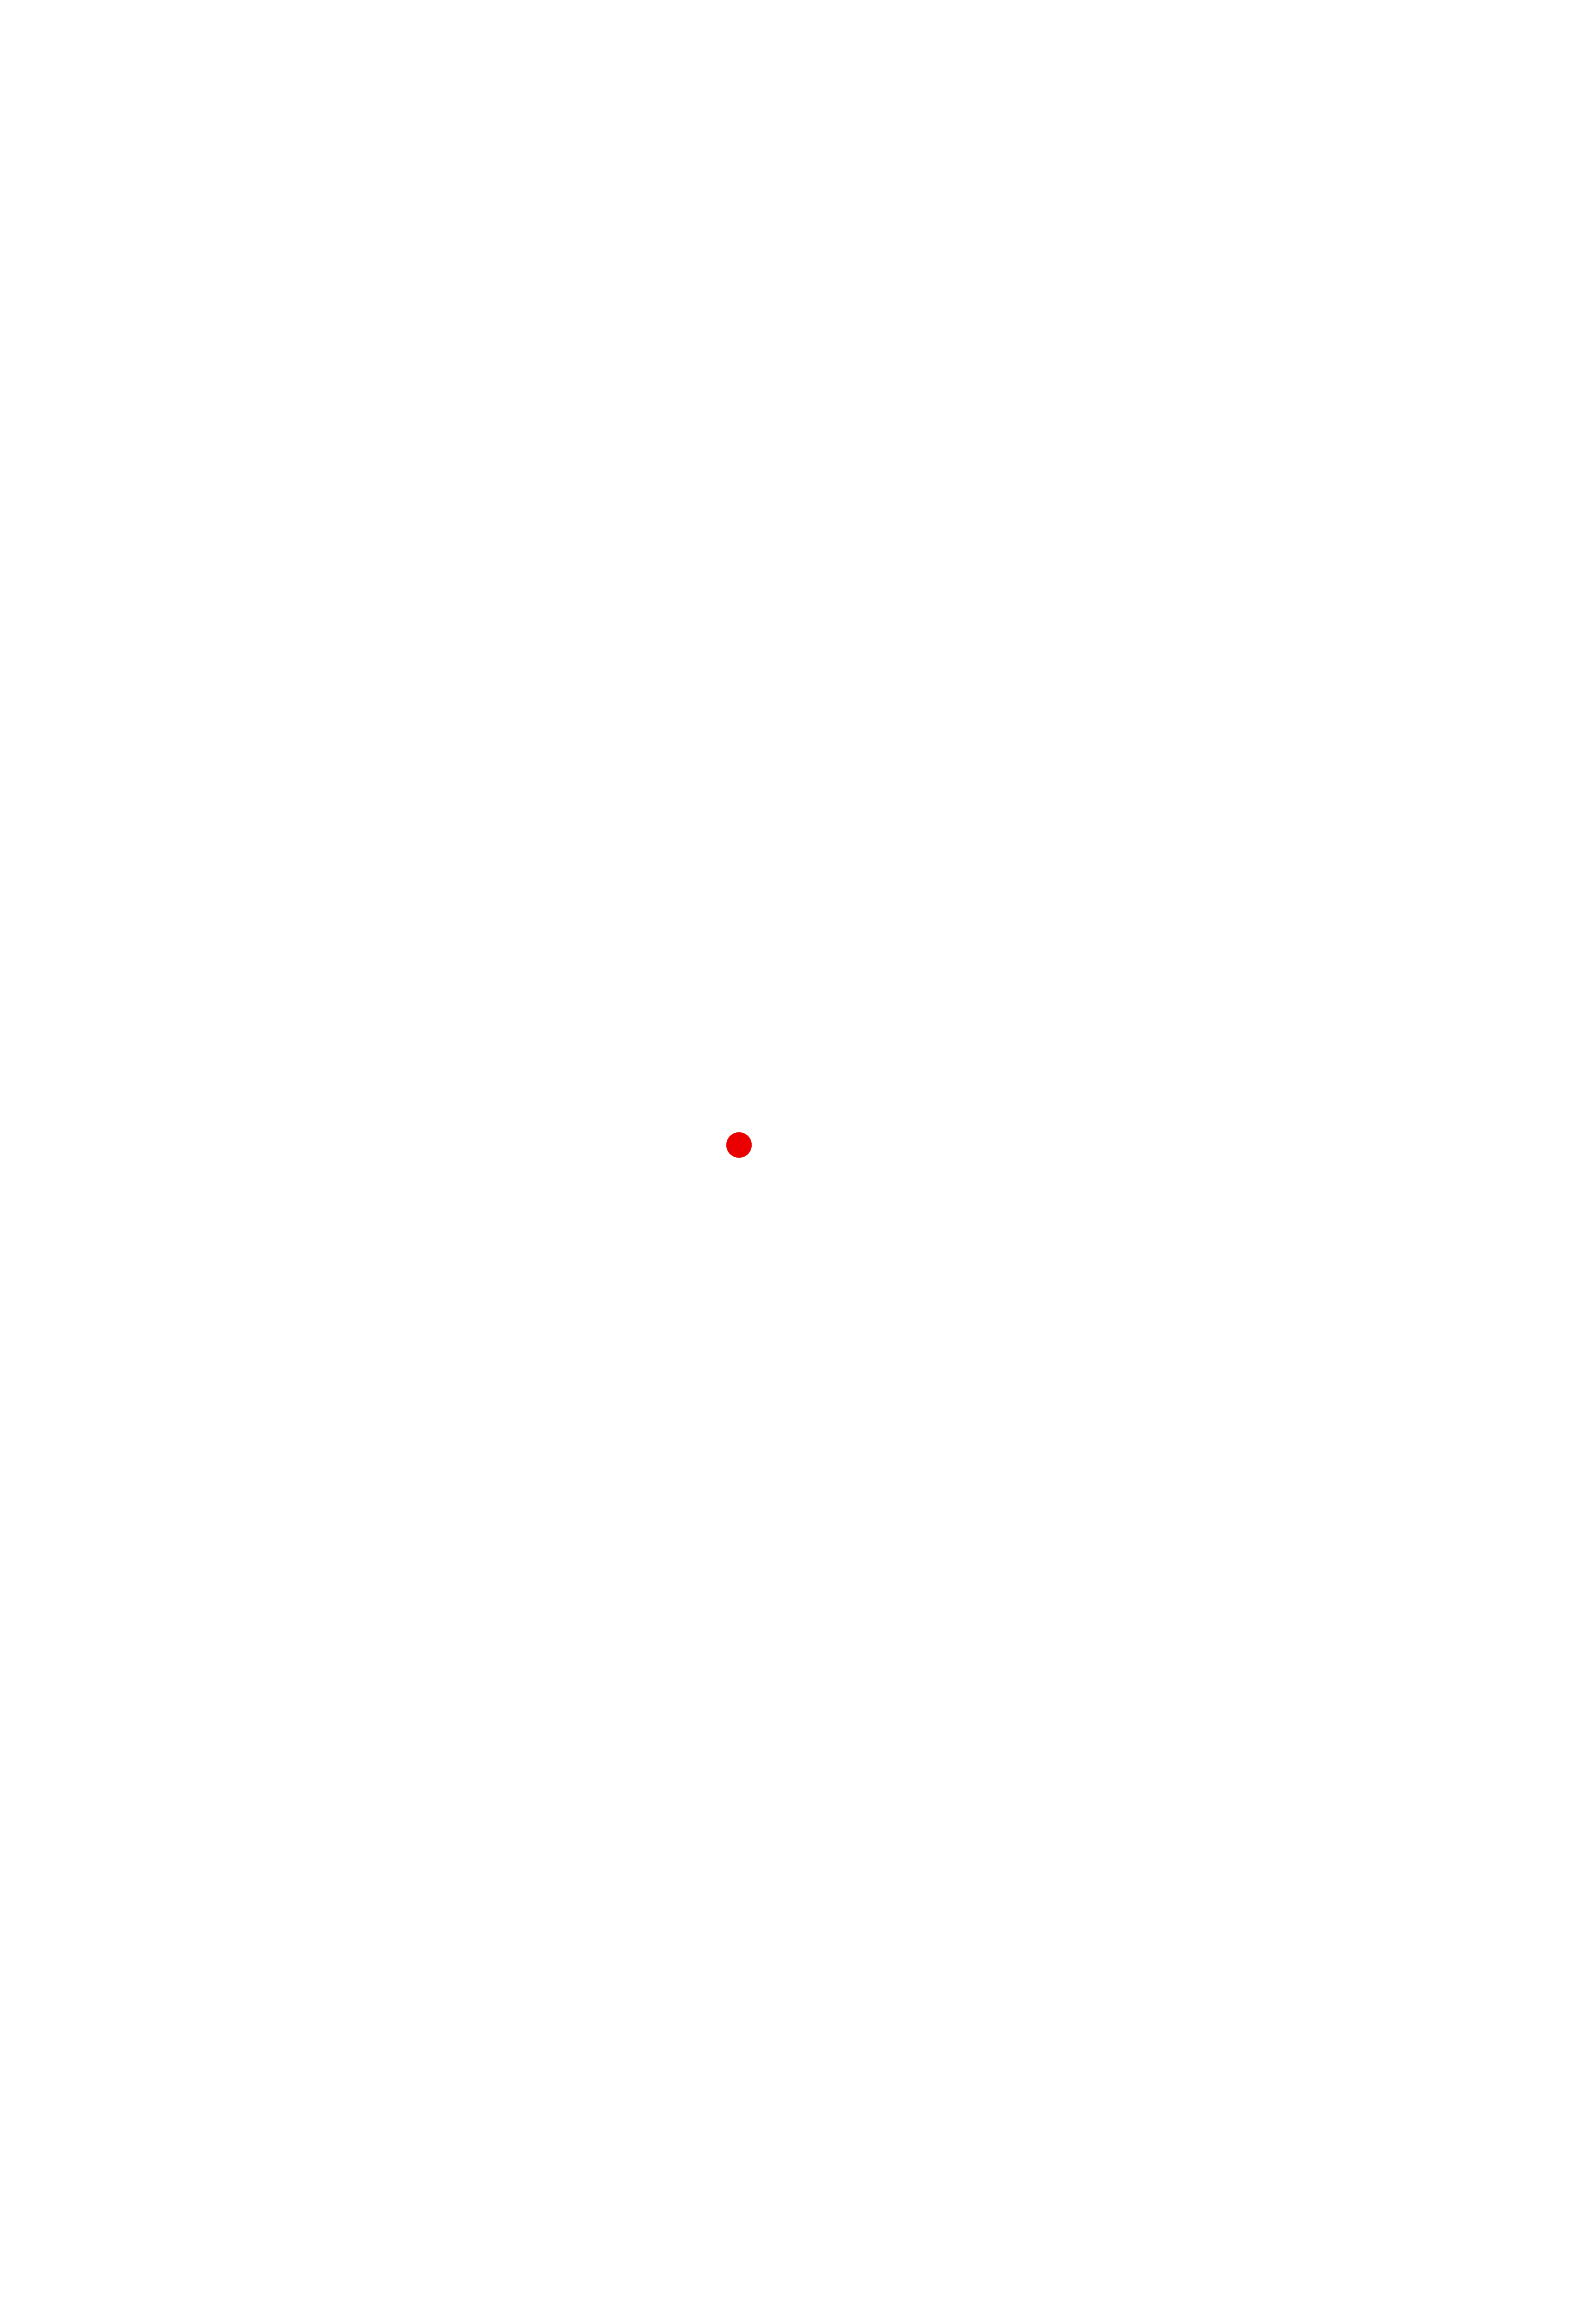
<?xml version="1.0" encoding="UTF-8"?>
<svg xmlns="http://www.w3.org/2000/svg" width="1582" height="2314">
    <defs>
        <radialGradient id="g1" gradientUnits="userSpaceOnUse" cx="739" cy="1145" r="13"><stop offset="0.9" stop-color="#EA0000"/><stop offset="1" stop-color="#FFFFFF"/></radialGradient>
        <radialGradient id="g2" gradientUnits="userSpaceOnUse" cx="739" cy="1145" r="13"><stop offset="0.9" stop-color="#EA0000"/><stop offset="1" stop-color="#EA0000" stop-opacity="0"/></radialGradient>
    </defs>
    <rect width="100%" height="100%" fill="#FFFFFF"/>
    <rect x="726" y="1132" width="26" height="26" fill="url(#g1)"/>
    <rect x="726" y="1132" width="26" height="26" fill="url(#g2)"/>
    <rect x="726" y="1132" width="26" height="26" fill="url(#g2)"/>
    <rect x="726" y="1132" width="26" height="26" fill="url(#g2)"/>
</svg>
